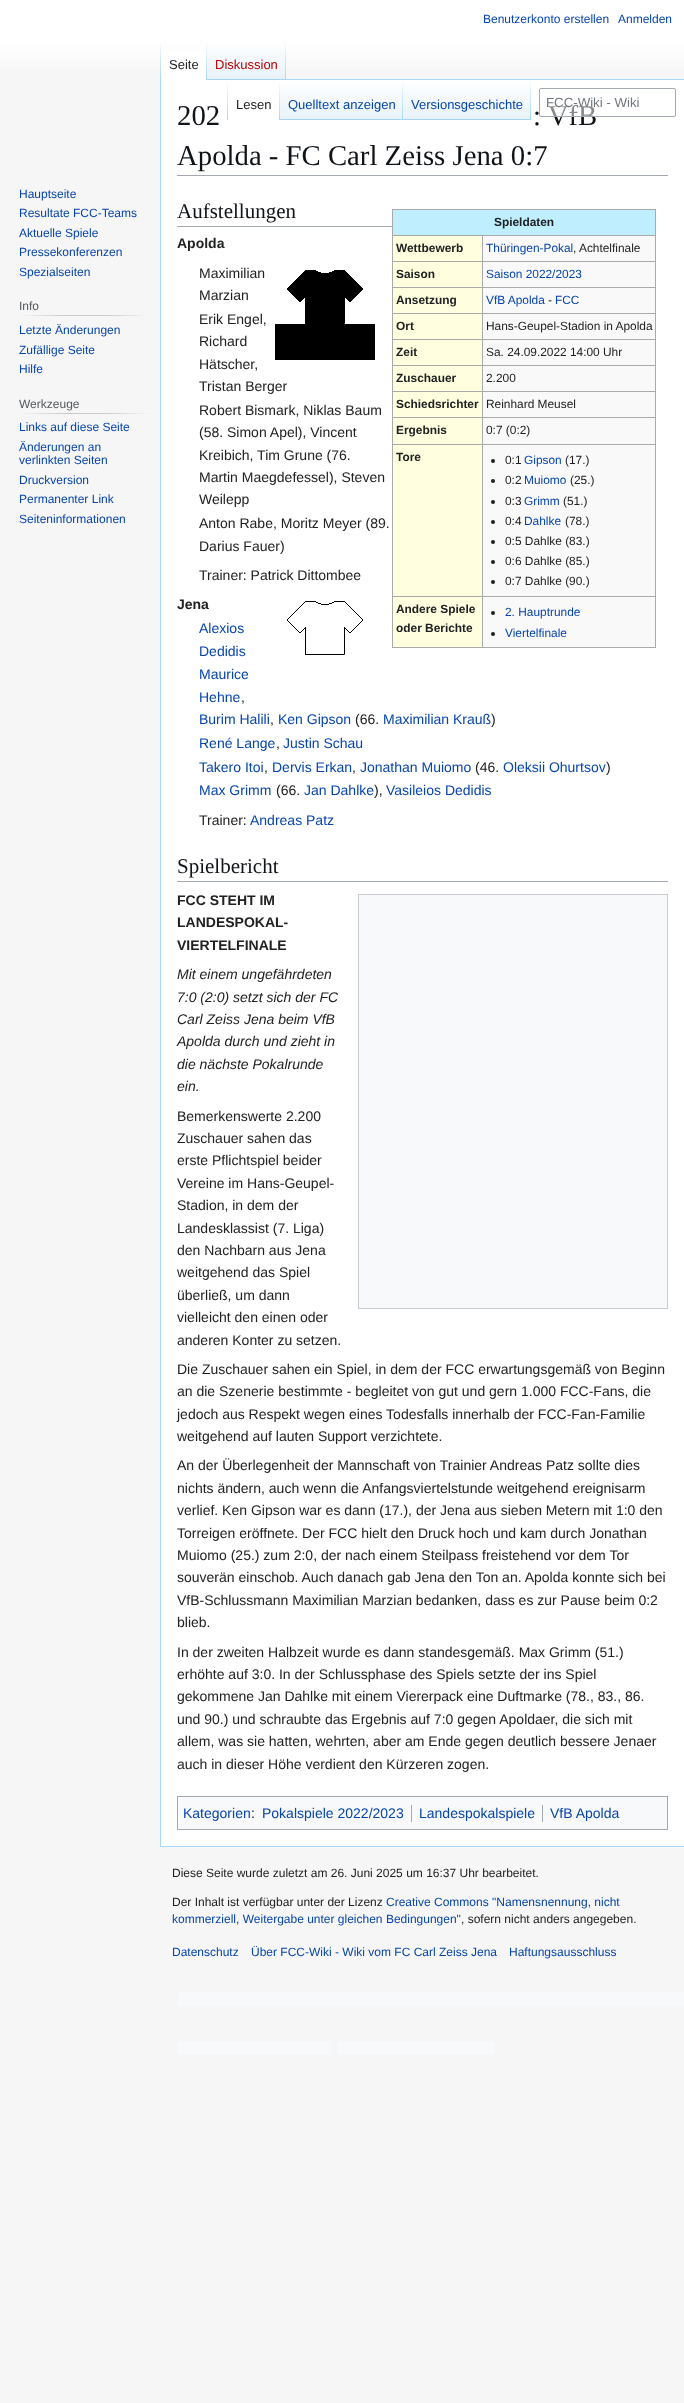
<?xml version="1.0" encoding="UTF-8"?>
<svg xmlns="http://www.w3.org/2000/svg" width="684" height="2403">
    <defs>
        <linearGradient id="g1" gradientUnits="userSpaceOnUse" x1="342" y1="0" x2="342" y2="80"><stop offset="0.5" stop-color="#FFFFFF"/><stop offset="1" stop-color="#F6F6F6"/></linearGradient>
        <linearGradient id="g2" gradientUnits="userSpaceOnUse" x1="161" y1="40" x2="161" y2="80"><stop offset="0" stop-color="#A7D7F9" stop-opacity="0"/><stop offset="1" stop-color="#A7D7F9"/></linearGradient>
        <linearGradient id="g3" gradientUnits="userSpaceOnUse" x1="207" y1="40" x2="207" y2="80"><stop offset="0" stop-color="#FFFFFF"/><stop offset="1" stop-color="#A7D7F9"/></linearGradient>
        <linearGradient id="g4" gradientUnits="userSpaceOnUse" x1="247" y1="80" x2="247" y2="40"><stop offset="0" stop-color="#77C1F6"/><stop offset="0.03" stop-color="#E8F2F8"/><stop offset="1" stop-color="#FFFFFF"/></linearGradient>
        <linearGradient id="g5" gradientUnits="userSpaceOnUse" x1="286" y1="40" x2="286" y2="80"><stop offset="0" stop-color="#A7D7F9" stop-opacity="0"/><stop offset="1" stop-color="#A7D7F9"/></linearGradient>
        <linearGradient id="g6" gradientUnits="userSpaceOnUse" x1="228" y1="80" x2="228" y2="120"><stop offset="0" stop-color="#A7D7F9" stop-opacity="0"/><stop offset="1" stop-color="#A7D7F9"/></linearGradient>
        <linearGradient id="g7" gradientUnits="userSpaceOnUse" x1="280" y1="80" x2="280" y2="120"><stop offset="0" stop-color="#FFFFFF"/><stop offset="1" stop-color="#A7D7F9"/></linearGradient>
        <linearGradient id="g8" gradientUnits="userSpaceOnUse" x1="342" y1="120" x2="342" y2="80"><stop offset="0" stop-color="#77C1F6"/><stop offset="0.03" stop-color="#E8F2F8"/><stop offset="1" stop-color="#FFFFFF"/></linearGradient>
        <linearGradient id="g9" gradientUnits="userSpaceOnUse" x1="403" y1="80" x2="403" y2="120"><stop offset="0" stop-color="#A7D7F9" stop-opacity="0"/><stop offset="1" stop-color="#A7D7F9"/></linearGradient>
        <linearGradient id="g10" gradientUnits="userSpaceOnUse" x1="467" y1="120" x2="467" y2="80"><stop offset="0" stop-color="#77C1F6"/><stop offset="0.03" stop-color="#E8F2F8"/><stop offset="1" stop-color="#FFFFFF"/></linearGradient>
        <linearGradient id="g11" gradientUnits="userSpaceOnUse" x1="531" y1="80" x2="531" y2="120"><stop offset="0" stop-color="#A7D7F9" stop-opacity="0"/><stop offset="1" stop-color="#A7D7F9"/></linearGradient>
        <linearGradient id="g12" gradientUnits="userSpaceOnUse" x1="19" y1="316" x2="150" y2="316"><stop offset="0" stop-color="#F6F6F6"/><stop offset="0.33" stop-color="#C8CCD1"/><stop offset="0.66" stop-color="#C8CCD1"/><stop offset="1" stop-color="#F6F6F6"/></linearGradient>
        <linearGradient id="g13" gradientUnits="userSpaceOnUse" x1="19" y1="414" x2="150" y2="414"><stop offset="0" stop-color="#F6F6F6"/><stop offset="0.33" stop-color="#C8CCD1"/><stop offset="0.66" stop-color="#C8CCD1"/><stop offset="1" stop-color="#F6F6F6"/></linearGradient>
    </defs>
    <rect width="100%" height="100%" fill="#F6F6F6"/>
    <rect x="0" y="0" width="684" height="69" fill="url(#g1)"/>
    <text x="483" y="23" font-family="Liberation Sans" font-size="12" fill="#0645AD">Benutzerkonto erstellen</text>
    <text x="618" y="23" font-family="Liberation Sans" font-size="12" fill="#0645AD">Anmelden</text>
    <rect x="160" y="1846" width="524" height="1" fill="#A7D7F9"/>
    <rect x="160" y="79" width="1" height="1768" fill="#A7D7F9"/>
    <rect x="160" y="40" width="1" height="40" fill="url(#g2)"/>
    <rect x="161" y="51" width="45" height="29" fill="#FFFFFF"/>
    <rect x="206" y="40" width="1" height="40" fill="url(#g3)"/>
    <text x="169" y="69" font-family="Liberation Sans" font-size="13" fill="#202122">Seite</text>
    <rect x="207" y="46" width="79" height="34" fill="url(#g4)"/>
    <rect x="285" y="40" width="1" height="40" fill="url(#g5)"/>
    <text x="215" y="69" font-family="Liberation Sans" font-size="13" fill="#BA0000">Diskussion</text>
    <rect x="161" y="80" width="523" height="1766" fill="#FFFFFF"/>
    <rect x="227" y="80" width="1" height="40" fill="url(#g6)"/>
    <rect x="279" y="80" width="1" height="40" fill="url(#g7)"/>
    <text x="236" y="109" font-family="Liberation Sans" font-size="13" fill="#202122">Lesen</text>
    <rect x="280" y="84" width="123" height="36" fill="url(#g8)"/>
    <rect x="402" y="80" width="1" height="40" fill="url(#g9)"/>
    <text x="288" y="109" font-family="Liberation Sans" font-size="13" fill="#0645AD">Quelltext anzeigen</text>
    <rect x="403" y="84" width="128" height="36" fill="url(#g10)"/>
    <rect x="530" y="80" width="1" height="40" fill="url(#g11)"/>
    <text x="411" y="109" font-family="Liberation Sans" font-size="13" fill="#0645AD">Versionsgeschichte</text>
    <text x="533" y="125" font-family="Liberation Serif" font-size="28.75" fill="#101418">: VfB</text>
    <rect x="539.5" y="88.5" width="136" height="28" rx="1.5" fill="#FFFFFF" fill-opacity="0.5" stroke="#A2A9B1"/>
    <text x="546" y="107" font-family="Liberation Sans" font-size="13.25" fill="#72777D">FCC-Wiki - Wiki</text>
    <text font-family="Liberation Sans" font-size="12" fill="#0645AD">
        <tspan x="19" y="198">Hauptseite</tspan>
        <tspan x="19" y="217">Resultate FCC-Teams</tspan>
        <tspan x="19" y="237">Aktuelle Spiele</tspan>
        <tspan x="19" y="256">Pressekonferenzen</tspan>
        <tspan x="19" y="276">Spezialseiten</tspan>
    </text>
    <rect x="19" y="315" width="131" height="1" fill="url(#g12)"/>
    <text x="19" y="310" font-family="Liberation Sans" font-size="12" fill="#54595D">Info</text>
    <text font-family="Liberation Sans" font-size="12" fill="#0645AD">
        <tspan x="19" y="334">Letzte Änderungen</tspan>
        <tspan x="19" y="354">Zufällige Seite</tspan>
        <tspan x="19" y="373">Hilfe</tspan>
    </text>
    <rect x="19" y="413" width="131" height="1" fill="url(#g13)"/>
    <text x="19" y="408" font-family="Liberation Sans" font-size="12" fill="#54595D">Werkzeuge</text>
    <text font-family="Liberation Sans" font-size="12" fill="#0645AD">
        <tspan x="19" y="431">Links auf diese Seite</tspan>
        <tspan x="19" y="451">Änderungen an</tspan>
        <tspan x="19" y="464">verlinkten Seiten</tspan>
        <tspan x="19" y="484">Druckversion</tspan>
        <tspan x="19" y="503">Permanenter Link</tspan>
        <tspan x="19" y="523">Seiteninformationen</tspan>
    </text>
    <rect x="286" y="79" width="398" height="1" fill="#A7D7F9"/>
    <rect x="177" y="175" width="491" height="1" fill="#A2A9B1"/>
    <text font-family="Liberation Serif" font-size="28.75" fill="#101418">
        <tspan x="177" y="125">202</tspan>
        <tspan x="177" y="165">Apolda - FC Carl Zeiss Jena 0:7</tspan>
    </text>
    <rect x="177" y="226" width="215" height="1" fill="#A2A9B1"/>
    <text x="177" y="218" font-family="Liberation Serif" font-size="21" fill="#101418">Aufstellungen</text>
    <text x="177" y="248" font-family="Liberation Sans" font-size="14" font-weight="700" fill="#202122">Apolda</text>
    <rect x="483" y="236" width="172" height="411" fill="#F9F9F9"/>
    <rect x="392" y="209" width="264" height="1" fill="#AAAAAA"/>
    <rect x="655" y="209" width="1" height="439" fill="#AAAAAA"/>
    <rect x="392" y="647" width="264" height="1" fill="#AAAAAA"/>
    <rect x="392" y="209" width="1" height="439" fill="#AAAAAA"/>
    <rect x="393" y="210" width="262" height="25" fill="#BFEFFF"/>
    <text x="494" y="226" font-family="Liberation Sans" font-size="11.9" font-weight="700" fill="#202122">Spieldaten</text>
    <rect x="393" y="236" width="89" height="25" fill="#FFFFE0"/>
    <rect x="482" y="235" width="174" height="1" fill="#AAAAAA"/>
    <rect x="482" y="261" width="174" height="1" fill="#AAAAAA"/>
    <rect x="482" y="287" width="174" height="1" fill="#AAAAAA"/>
    <rect x="482" y="313" width="174" height="1" fill="#AAAAAA"/>
    <rect x="482" y="339" width="174" height="1" fill="#AAAAAA"/>
    <rect x="482" y="365" width="174" height="1" fill="#AAAAAA"/>
    <rect x="482" y="391" width="174" height="1" fill="#AAAAAA"/>
    <rect x="482" y="417" width="174" height="1" fill="#AAAAAA"/>
    <rect x="482" y="444" width="174" height="1" fill="#AAAAAA"/>
    <rect x="482" y="596" width="174" height="1" fill="#AAAAAA"/>
    <rect x="482" y="596" width="1" height="52" fill="#AAAAAA"/>
    <rect x="392" y="596" width="91" height="1" fill="#AAAAAA"/>
    <rect x="482" y="444" width="1" height="153" fill="#AAAAAA"/>
    <rect x="392" y="444" width="91" height="1" fill="#AAAAAA"/>
    <rect x="482" y="417" width="1" height="28" fill="#AAAAAA"/>
    <rect x="392" y="417" width="91" height="1" fill="#AAAAAA"/>
    <rect x="482" y="391" width="1" height="27" fill="#AAAAAA"/>
    <rect x="392" y="391" width="91" height="1" fill="#AAAAAA"/>
    <rect x="482" y="365" width="1" height="27" fill="#AAAAAA"/>
    <rect x="392" y="365" width="91" height="1" fill="#AAAAAA"/>
    <rect x="482" y="339" width="1" height="27" fill="#AAAAAA"/>
    <rect x="392" y="339" width="91" height="1" fill="#AAAAAA"/>
    <rect x="482" y="313" width="1" height="27" fill="#AAAAAA"/>
    <rect x="392" y="313" width="91" height="1" fill="#AAAAAA"/>
    <rect x="482" y="287" width="1" height="27" fill="#AAAAAA"/>
    <rect x="392" y="287" width="91" height="1" fill="#AAAAAA"/>
    <rect x="482" y="261" width="1" height="27" fill="#AAAAAA"/>
    <rect x="392" y="261" width="91" height="1" fill="#AAAAAA"/>
    <rect x="482" y="235" width="1" height="27" fill="#AAAAAA"/>
    <rect x="392" y="235" width="91" height="1" fill="#AAAAAA"/>
    <text x="396" y="252" font-family="Liberation Sans" font-size="11.9" font-weight="700" fill="#202122">Wettbewerb</text>
    <text x="486" y="252" font-family="Liberation Sans" font-size="11.9" fill="#0645AD">Thüringen-Pokal</text>
    <text x="573" y="252" font-family="Liberation Sans" font-size="11.9" fill="#202122">, Achtelfinale</text>
    <rect x="393" y="262" width="89" height="25" fill="#FFFFE0"/>
    <text x="396" y="278" font-family="Liberation Sans" font-size="11.9" font-weight="700" fill="#202122">Saison</text>
    <text x="486" y="278" font-family="Liberation Sans" font-size="11.9" fill="#0645AD">Saison 2022/2023</text>
    <rect x="393" y="288" width="89" height="25" fill="#FFFFE0"/>
    <text x="396" y="304" font-family="Liberation Sans" font-size="11.9" font-weight="700" fill="#202122">Ansetzung</text>
    <text x="486" y="304" font-family="Liberation Sans" font-size="11.9" fill="#0645AD">VfB Apolda</text>
    <text x="548" y="304" font-family="Liberation Sans" font-size="11.9" fill="#202122">-</text>
    <text x="555" y="304" font-family="Liberation Sans" font-size="11.9" fill="#0645AD">FCC</text>
    <rect x="393" y="314" width="89" height="25" fill="#FFFFE0"/>
    <text x="396" y="330" font-family="Liberation Sans" font-size="11.9" font-weight="700" fill="#202122">Ort</text>
    <text x="486" y="330" font-family="Liberation Sans" font-size="11.9" fill="#202122">Hans-Geupel-Stadion in Apolda</text>
    <rect x="393" y="340" width="89" height="25" fill="#FFFFE0"/>
    <text x="396" y="356" font-family="Liberation Sans" font-size="11.9" font-weight="700" fill="#202122">Zeit</text>
    <text x="486" y="356" font-family="Liberation Sans" font-size="11.9" fill="#202122">Sa. 24.09.2022 14:00 Uhr</text>
    <rect x="393" y="366" width="89" height="25" fill="#FFFFE0"/>
    <text x="396" y="382" font-family="Liberation Sans" font-size="11.9" font-weight="700" fill="#202122">Zuschauer</text>
    <text x="486" y="382" font-family="Liberation Sans" font-size="11.9" fill="#202122">2.200</text>
    <rect x="393" y="392" width="89" height="25" fill="#FFFFE0"/>
    <text x="396" y="408" font-family="Liberation Sans" font-size="11.9" font-weight="700" fill="#202122">Schiedsrichter</text>
    <text x="486" y="408" font-family="Liberation Sans" font-size="11.9" fill="#202122">Reinhard Meusel</text>
    <rect x="393" y="418" width="89" height="26" fill="#FFFFE0"/>
    <text x="396" y="434" font-family="Liberation Sans" font-size="11.9" font-weight="700" fill="#202122">Ergebnis</text>
    <text x="486" y="434" font-family="Liberation Sans" font-size="11.9" fill="#202122">0:7 (0:2)</text>
    <rect x="393" y="445" width="89" height="151" fill="#FFFFE0"/>
    <text x="396" y="461" font-family="Liberation Sans" font-size="11.9" font-weight="700" fill="#202122">Tore</text>
    <circle cx="493" cy="461" r="2" fill="#202122"/>
    <text x="505" y="464" font-family="Liberation Sans" font-size="11.9" fill="#202122">0:1</text>
    <text x="524" y="464" font-family="Liberation Sans" font-size="11.9" fill="#0645AD">Gipson</text>
    <text x="565" y="464" font-family="Liberation Sans" font-size="11.9" fill="#202122">(17.)</text>
    <circle cx="493" cy="481" r="2" fill="#202122"/>
    <text x="505" y="484" font-family="Liberation Sans" font-size="11.9" fill="#202122">0:2</text>
    <text x="524" y="484" font-family="Liberation Sans" font-size="11.9" fill="#0645AD">Muiomo</text>
    <text x="570" y="484" font-family="Liberation Sans" font-size="11.9" fill="#202122">(25.)</text>
    <circle cx="493" cy="502" r="2" fill="#202122"/>
    <text x="505" y="505" font-family="Liberation Sans" font-size="11.9" fill="#202122">0:3</text>
    <text x="524" y="505" font-family="Liberation Sans" font-size="11.9" fill="#0645AD">Grimm</text>
    <text x="563" y="505" font-family="Liberation Sans" font-size="11.9" fill="#202122">(51.)</text>
    <circle cx="493" cy="522" r="2" fill="#202122"/>
    <text x="505" y="525" font-family="Liberation Sans" font-size="11.9" fill="#202122">0:4</text>
    <text x="524" y="525" font-family="Liberation Sans" font-size="11.9" fill="#0645AD">Dahlke</text>
    <text x="565" y="525" font-family="Liberation Sans" font-size="11.9" fill="#202122">(78.)</text>
    <circle cx="493" cy="542" r="2" fill="#202122"/>
    <text x="505" y="545" font-family="Liberation Sans" font-size="11.9" fill="#202122">0:5 Dahlke (83.)</text>
    <circle cx="493" cy="562" r="2" fill="#202122"/>
    <text x="505" y="565" font-family="Liberation Sans" font-size="11.9" fill="#202122">0:6 Dahlke (85.)</text>
    <circle cx="493" cy="582" r="2" fill="#202122"/>
    <text x="505" y="585" font-family="Liberation Sans" font-size="11.9" fill="#202122">0:7 Dahlke (90.)</text>
    <rect x="393" y="597" width="89" height="50" fill="#FFFFE0"/>
    <text font-family="Liberation Sans" font-size="11.9" font-weight="700" fill="#202122">
        <tspan x="396" y="613">Andere Spiele</tspan>
        <tspan x="396" y="632">oder Berichte</tspan>
    </text>
    <circle cx="493" cy="613" r="2" fill="#202122"/>
    <text x="505" y="616" font-family="Liberation Sans" font-size="11.9" fill="#0645AD">2. Hauptrunde</text>
    <circle cx="493" cy="634" r="2" fill="#202122"/>
    <text x="505" y="637" font-family="Liberation Sans" font-size="11.9" fill="#0645AD">Viertelfinale</text>
    <rect x="288" y="271" width="18" height="30" fill="#000000"/>
    <image x="275" y="265" width="31" height="59" href="img_01.png"/>
    <rect x="306" y="271" width="38" height="53" fill="#000000"/>
    <image x="306" y="265" width="38" height="8" href="img_02.png"/>
    <rect x="344" y="271" width="18" height="30" fill="#000000"/>
    <image x="344" y="265" width="31" height="59" href="img_03.png"/>
    <rect x="275" y="324" width="100" height="36" fill="#000000"/>
    <text font-family="Liberation Sans" font-size="14" fill="#202122">
        <tspan x="199" y="278">Maximilian</tspan>
        <tspan x="199" y="300">Marzian</tspan>
        <tspan x="199" y="324">Erik Engel,</tspan>
        <tspan x="199" y="346">Richard</tspan>
        <tspan x="199" y="369">Hätscher,</tspan>
        <tspan x="199" y="391">Tristan Berger</tspan>
        <tspan x="199" y="415">Robert Bismark, Niklas Baum</tspan>
        <tspan x="199" y="437">(58. Simon Apel), Vincent</tspan>
        <tspan x="199" y="460">Kreibich, Tim Grune (76.</tspan>
        <tspan x="199" y="482">Martin Maegdefessel), Steven</tspan>
        <tspan x="199" y="504">Weilepp</tspan>
        <tspan x="199" y="528">Anton Rabe, Moritz Meyer (89.</tspan>
        <tspan x="199" y="551">Darius Fauer)</tspan>
    </text>
    <text x="199" y="580" font-family="Liberation Sans" font-size="14" fill="#202122">Trainer: Patrick Dittombee</text>
    <text x="177" y="609" font-family="Liberation Sans" font-size="14" font-weight="700" fill="#202122">Jena</text>
    <text font-family="Liberation Sans" font-size="14" fill="#0645AD">
        <tspan x="199" y="633">Alexios</tspan>
        <tspan x="199" y="656">Dedidis</tspan>
        <tspan x="199" y="679">Maurice</tspan>
        <tspan x="199" y="702">Hehne</tspan>
    </text>
    <text x="241" y="702" font-family="Liberation Sans" font-size="14" fill="#202122">,</text>
    <text x="199" y="724" font-family="Liberation Sans" font-size="14" fill="#0645AD">Burim Halili</text>
    <text x="270" y="724" font-family="Liberation Sans" font-size="14" fill="#202122">,</text>
    <text x="278" y="724" font-family="Liberation Sans" font-size="14" fill="#0645AD">Ken Gipson</text>
    <text x="355" y="724" font-family="Liberation Sans" font-size="14" fill="#202122">(66.</text>
    <text x="383" y="724" font-family="Liberation Sans" font-size="14" fill="#0645AD">Maximilian Krauß</text>
    <text x="491" y="724" font-family="Liberation Sans" font-size="14" fill="#202122">)</text>
    <text x="199" y="748" font-family="Liberation Sans" font-size="14" fill="#0645AD">René Lange</text>
    <text x="276" y="748" font-family="Liberation Sans" font-size="14" fill="#202122">,</text>
    <text x="283" y="748" font-family="Liberation Sans" font-size="14" fill="#0645AD">Justin Schau</text>
    <text x="199" y="772" font-family="Liberation Sans" font-size="14" fill="#0645AD">Takero Itoi</text>
    <text x="264" y="772" font-family="Liberation Sans" font-size="14" fill="#202122">,</text>
    <text x="272" y="772" font-family="Liberation Sans" font-size="14" fill="#0645AD">Dervis Erkan</text>
    <text x="352" y="772" font-family="Liberation Sans" font-size="14" fill="#202122">,</text>
    <text x="360" y="772" font-family="Liberation Sans" font-size="14" fill="#0645AD">Jonathan Muiomo</text>
    <text x="475" y="772" font-family="Liberation Sans" font-size="14" fill="#202122">(46.</text>
    <text x="503" y="772" font-family="Liberation Sans" font-size="14" fill="#0645AD">Oleksii Ohurtsov</text>
    <text x="606" y="772" font-family="Liberation Sans" font-size="14" fill="#202122">)</text>
    <text x="199" y="795" font-family="Liberation Sans" font-size="14" fill="#0645AD">Max Grimm</text>
    <text x="276" y="795" font-family="Liberation Sans" font-size="14" fill="#202122">(66.</text>
    <text x="304" y="795" font-family="Liberation Sans" font-size="14" fill="#0645AD">Jan Dahlke</text>
    <text x="374" y="795" font-family="Liberation Sans" font-size="14" fill="#202122">),</text>
    <text x="386" y="795" font-family="Liberation Sans" font-size="14" fill="#0645AD">Vasileios Dedidis</text>
    <image x="287" y="601" width="19" height="54" href="img_04.png"/>
    <image x="306" y="601" width="38" height="54" href="img_05.png"/>
    <image x="344" y="601" width="19" height="54" href="img_06.png"/>
    <text x="199" y="825" font-family="Liberation Sans" font-size="14" fill="#202122">Trainer:</text>
    <text x="250" y="825" font-family="Liberation Sans" font-size="14" fill="#0645AD">Andreas Patz</text>
    <rect x="177" y="881" width="491" height="1" fill="#A2A9B1"/>
    <text x="177" y="873" font-family="Liberation Serif" font-size="21" fill="#101418">Spielbericht</text>
    <text font-family="Liberation Sans" font-size="14" font-weight="700" fill="#202122">
        <tspan x="177" y="905">FCC STEHT IM</tspan>
        <tspan x="177" y="927">LANDESPOKAL-</tspan>
        <tspan x="177" y="950">VIERTELFINALE</tspan>
    </text>
    <rect x="359" y="895" width="308" height="413" fill="#F8F9FA"/>
    <rect x="358" y="894" width="310" height="1" fill="#C8CCD1"/>
    <rect x="358" y="1308" width="310" height="1" fill="#C8CCD1"/>
    <rect x="667" y="894" width="1" height="415" fill="#C8CCD1"/>
    <rect x="358" y="894" width="1" height="415" fill="#C8CCD1"/>
    <text font-family="Liberation Sans" font-size="14" font-style="italic" fill="#202122">
        <tspan x="177" y="979">Mit einem ungefährdeten</tspan>
        <tspan x="177" y="1002">7:0 (2:0) setzt sich der FC</tspan>
        <tspan x="177" y="1024">Carl Zeiss Jena beim VfB</tspan>
        <tspan x="177" y="1046">Apolda durch und zieht in</tspan>
        <tspan x="177" y="1069">die nächste Pokalrunde</tspan>
        <tspan x="177" y="1091">ein.</tspan>
    </text>
    <text font-family="Liberation Sans" font-size="14" fill="#202122">
        <tspan x="177" y="1121">Bemerkenswerte 2.200</tspan>
        <tspan x="177" y="1143">Zuschauer sahen das</tspan>
        <tspan x="177" y="1165">erste Pflichtspiel beider</tspan>
        <tspan x="177" y="1188">Vereine im Hans-Geupel-</tspan>
        <tspan x="177" y="1210">Stadion, in dem der</tspan>
        <tspan x="177" y="1233">Landesklassist (7. Liga)</tspan>
        <tspan x="177" y="1255">den Nachbarn aus Jena</tspan>
        <tspan x="177" y="1277">weitgehend das Spiel</tspan>
        <tspan x="177" y="1300">überließ, um dann</tspan>
        <tspan x="177" y="1322">vielleicht den einen oder</tspan>
        <tspan x="177" y="1345">anderen Konter zu setzen.</tspan>
    </text>
    <text font-family="Liberation Sans" font-size="14" fill="#202122">
        <tspan x="177" y="1374">Die Zuschauer sahen ein Spiel, in dem der FCC erwartungsgemäß von Beginn</tspan>
        <tspan x="177" y="1396">an die Szenerie bestimmte - begleitet von gut und gern 1.000 FCC-Fans, die</tspan>
        <tspan x="177" y="1419">jedoch aus Respekt wegen eines Todesfalls innerhalb der FCC-Fan-Familie</tspan>
        <tspan x="177" y="1441">weitgehend auf lauten Support verzichtete.</tspan>
    </text>
    <text font-family="Liberation Sans" font-size="14" fill="#202122">
        <tspan x="177" y="1470">An der Überlegenheit der Mannschaft von Trainier Andreas Patz sollte dies</tspan>
        <tspan x="177" y="1493">nichts ändern, auch wenn die Anfangsviertelstunde weitgehend ereignisarm</tspan>
        <tspan x="177" y="1515">verlief. Ken Gipson war es dann (17.), der Jena aus sieben Metern mit 1:0 den</tspan>
        <tspan x="177" y="1538">Torreigen eröffnete. Der FCC hielt den Druck hoch und kam durch Jonathan</tspan>
        <tspan x="177" y="1560">Muiomo (25.) zum 2:0, der nach einem Steilpass freistehend vor dem Tor</tspan>
        <tspan x="177" y="1582">souverän einschob. Auch danach gab Jena den Ton an. Apolda konnte sich bei</tspan>
        <tspan x="177" y="1605">VfB-Schlussmann Maximilian Marzian bedanken, dass es zur Pause beim 0:2</tspan>
        <tspan x="177" y="1627">blieb.</tspan>
    </text>
    <text font-family="Liberation Sans" font-size="14" fill="#202122">
        <tspan x="177" y="1657">In der zweiten Halbzeit wurde es dann standesgemäß. Max Grimm (51.)</tspan>
        <tspan x="177" y="1679">erhöhte auf 3:0. In der Schlussphase des Spiels setzte der ins Spiel</tspan>
        <tspan x="177" y="1701">gekommene Jan Dahlke mit einem Viererpack eine Duftmarke (78., 83., 86.</tspan>
        <tspan x="177" y="1724">und 90.) und schraubte das Ergebnis auf 7:0 gegen Apoldaer, die sich mit</tspan>
        <tspan x="177" y="1746">allem, was sie hatten, wehrten, aber am Ende gegen deutlich bessere Jenaer</tspan>
        <tspan x="177" y="1769">auch in dieser Höhe verdient den Kürzeren zogen.</tspan>
    </text>
    <rect x="177.5" y="1796.5" width="490" height="33" fill="#F8F9FA" stroke="#A2A9B1"/>
    <text x="183" y="1818" font-family="Liberation Sans" font-size="14" fill="#0645AD">Kategorien</text>
    <text x="251" y="1818" font-family="Liberation Sans" font-size="14" fill="#202122">:</text>
    <text x="262" y="1818" font-family="Liberation Sans" font-size="14" fill="#0645AD">Pokalspiele 2022/2023</text>
    <rect x="411" y="1805" width="1" height="17" fill="#A2A9B1"/>
    <text x="419" y="1818" font-family="Liberation Sans" font-size="14" fill="#0645AD">Landespokalspiele</text>
    <rect x="542" y="1805" width="1" height="17" fill="#A2A9B1"/>
    <text x="550" y="1818" font-family="Liberation Sans" font-size="14" fill="#0645AD">VfB Apolda</text>
    <text x="172" y="1877" font-family="Liberation Sans" font-size="12" fill="#202122">Diese Seite wurde zuletzt am 26. Juni 2025 um 16:37 Uhr bearbeitet.</text>
    <text x="172" y="1906" font-family="Liberation Sans" font-size="12" fill="#202122">Der Inhalt ist verfügbar unter der Lizenz</text>
    <text x="386" y="1906" font-family="Liberation Sans" font-size="12" fill="#0645AD">Creative Commons "Namensnennung, nicht</text>
    <text x="172" y="1923" font-family="Liberation Sans" font-size="12" fill="#0645AD">kommerziell, Weitergabe unter gleichen Bedingungen"</text>
    <text x="461" y="1923" font-family="Liberation Sans" font-size="12" fill="#202122">, sofern nicht anders angegeben.</text>
    <text x="172" y="1956" font-family="Liberation Sans" font-size="12" fill="#0645AD">Datenschutz</text>
    <text x="251" y="1956" font-family="Liberation Sans" font-size="12" fill="#0645AD">Über FCC-Wiki - Wiki vom FC Carl Zeiss Jena</text>
    <text x="509" y="1956" font-family="Liberation Sans" font-size="12" fill="#0645AD">Haftungsausschluss</text>
    <rect x="178" y="1992" width="506" height="14" fill="#F8F9FA"/>
    <rect x="178" y="2041" width="154" height="14" fill="#F8F9FA"/>
    <rect x="338" y="2041" width="156" height="14" fill="#F8F9FA"/>
</svg>
